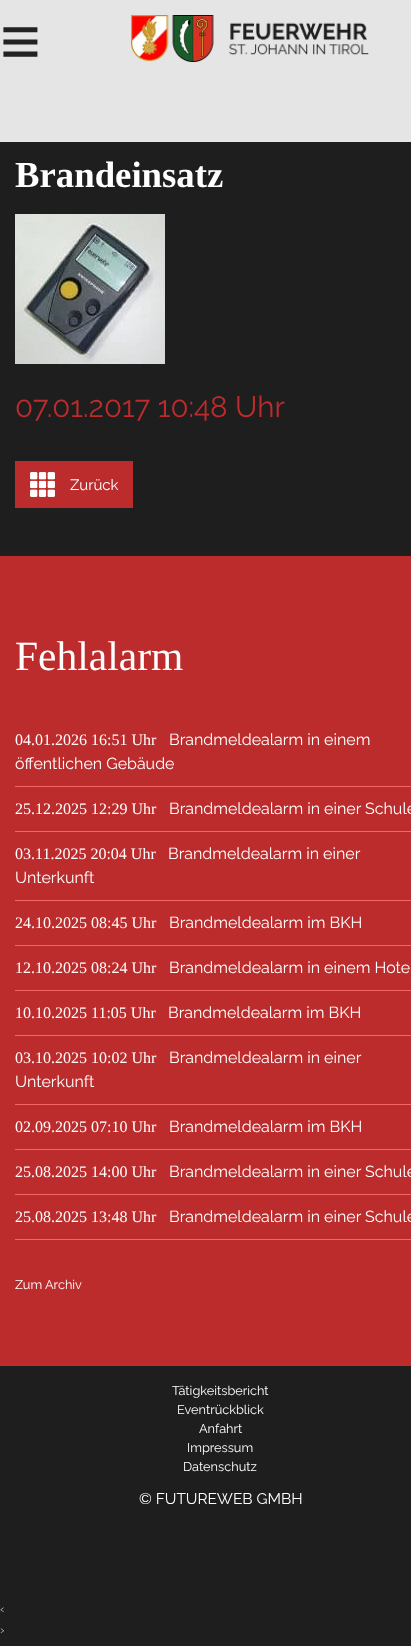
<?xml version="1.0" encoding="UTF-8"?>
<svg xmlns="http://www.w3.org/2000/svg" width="411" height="1646">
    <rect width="100%" height="100%" fill="#1E1E1E"/>
    <rect x="0" y="0" width="411" height="142" fill="#E5E5E5"/>
    <text x="0" y="65" font-family="Liberation Sans" font-size="70" fill="#222222">≡</text>
    <image x="131" y="15" width="238" height="47" href="img_01.png"/>
    <text x="15" y="187" font-family="Liberation Serif" font-size="36.75" font-weight="700" fill="#FFFFFF">Brandeinsatz</text>
    <image x="15" y="214" width="150" height="150" href="img_02.png"/>
    <text x="15" y="417" font-family="Raleway" font-size="29.5" fill="#BD2C2C">07.01.2017 10:48 Uhr</text>
    <rect x="15" y="461" width="118" height="47" fill="#BD2C2C"/>
    <image x="30" y="472" width="25" height="25" href="img_03.png"/>
    <text x="70" y="490" font-family="Raleway" font-size="15" fill="#FFFFFF">Zurück</text>
    <rect x="0" y="556" width="411" height="810" fill="#BD2C2C"/>
    <text x="15" y="670" font-family="Liberation Serif" font-size="41.5" fill="#FFFFFF">Fehlalarm</text>
    <rect x="15" y="786" width="396" height="1" fill="#F36767"/>
    <text x="15" y="745" font-family="Liberation Serif" font-size="16" fill="#FFFFFF">04.01.2026 16:51 Uhr</text>
    <text x="169" y="745" font-family="Raleway" font-size="16" fill="#FFFFFF">Brandmeldealarm in einem</text>
    <text x="15" y="769" font-family="Raleway" font-size="16" fill="#FFFFFF">öffentlichen Gebäude</text>
    <rect x="15" y="831" width="396" height="1" fill="#F36767"/>
    <text x="15" y="814" font-family="Liberation Serif" font-size="16" fill="#FFFFFF">25.12.2025 12:29 Uhr</text>
    <text x="169" y="814" font-family="Raleway" font-size="16" fill="#FFFFFF">Brandmeldealarm in einer Schule</text>
    <rect x="15" y="900" width="396" height="1" fill="#F36767"/>
    <text x="15" y="859" font-family="Liberation Serif" font-size="16" fill="#FFFFFF">03.11.2025 20:04 Uhr</text>
    <text x="168" y="859" font-family="Raleway" font-size="16" fill="#FFFFFF">Brandmeldealarm in einer</text>
    <text x="15" y="883" font-family="Raleway" font-size="16" fill="#FFFFFF">Unterkunft</text>
    <rect x="15" y="945" width="396" height="1" fill="#F36767"/>
    <text x="15" y="928" font-family="Liberation Serif" font-size="16" fill="#FFFFFF">24.10.2025 08:45 Uhr</text>
    <text x="169" y="928" font-family="Raleway" font-size="16" fill="#FFFFFF">Brandmeldealarm im BKH</text>
    <rect x="15" y="990" width="396" height="1" fill="#F36767"/>
    <text x="15" y="973" font-family="Liberation Serif" font-size="16" fill="#FFFFFF">12.10.2025 08:24 Uhr</text>
    <text x="169" y="973" font-family="Raleway" font-size="16" fill="#FFFFFF">Brandmeldealarm in einem Hote</text>
    <rect x="15" y="1035" width="396" height="1" fill="#F36767"/>
    <text x="15" y="1018" font-family="Liberation Serif" font-size="16" fill="#FFFFFF">10.10.2025 11:05 Uhr</text>
    <text x="168" y="1018" font-family="Raleway" font-size="16" fill="#FFFFFF">Brandmeldealarm im BKH</text>
    <rect x="15" y="1104" width="396" height="1" fill="#F36767"/>
    <text x="15" y="1063" font-family="Liberation Serif" font-size="16" fill="#FFFFFF">03.10.2025 10:02 Uhr</text>
    <text x="169" y="1063" font-family="Raleway" font-size="16" fill="#FFFFFF">Brandmeldealarm in einer</text>
    <text x="15" y="1087" font-family="Raleway" font-size="16" fill="#FFFFFF">Unterkunft</text>
    <rect x="15" y="1149" width="396" height="1" fill="#F36767"/>
    <text x="15" y="1132" font-family="Liberation Serif" font-size="16" fill="#FFFFFF">02.09.2025 07:10 Uhr</text>
    <text x="169" y="1132" font-family="Raleway" font-size="16" fill="#FFFFFF">Brandmeldealarm im BKH</text>
    <rect x="15" y="1194" width="396" height="1" fill="#F36767"/>
    <text x="15" y="1177" font-family="Liberation Serif" font-size="16" fill="#FFFFFF">25.08.2025 14:00 Uhr</text>
    <text x="169" y="1177" font-family="Raleway" font-size="16" fill="#FFFFFF">Brandmeldealarm in einer Schule</text>
    <rect x="15" y="1239" width="396" height="1" fill="#F36767"/>
    <text x="15" y="1222" font-family="Liberation Serif" font-size="16" fill="#FFFFFF">25.08.2025 13:48 Uhr</text>
    <text x="169" y="1222" font-family="Raleway" font-size="16" fill="#FFFFFF">Brandmeldealarm in einer Schule</text>
    <text x="15" y="1289" font-family="Raleway" font-size="12.75" fill="#FFFFFF">Zum Archiv</text>
    <text x="172" y="1395" font-family="Raleway" font-size="12.75" fill="#FFFFFF">Tätigkeitsbericht</text>
    <text x="177" y="1414" font-family="Raleway" font-size="12.75" fill="#FFFFFF">Eventrückblick</text>
    <text x="199" y="1433" font-family="Raleway" font-size="12.75" fill="#FFFFFF">Anfahrt</text>
    <text x="187" y="1452" font-family="Raleway" font-size="12.75" fill="#FFFFFF">Impressum</text>
    <text x="183" y="1471" font-family="Raleway" font-size="12.75" fill="#FFFFFF">Datenschutz</text>
    <text x="139" y="1504" font-family="Raleway" font-size="15.4" fill="#FFFFFF">© FUTUREWEB GMBH</text>
    <text font-family="Raleway" font-size="12.75" fill="#BBBBBB">
        <tspan x="0" y="1613">‹</tspan>
        <tspan x="0" y="1634">›</tspan>
    </text>
</svg>
